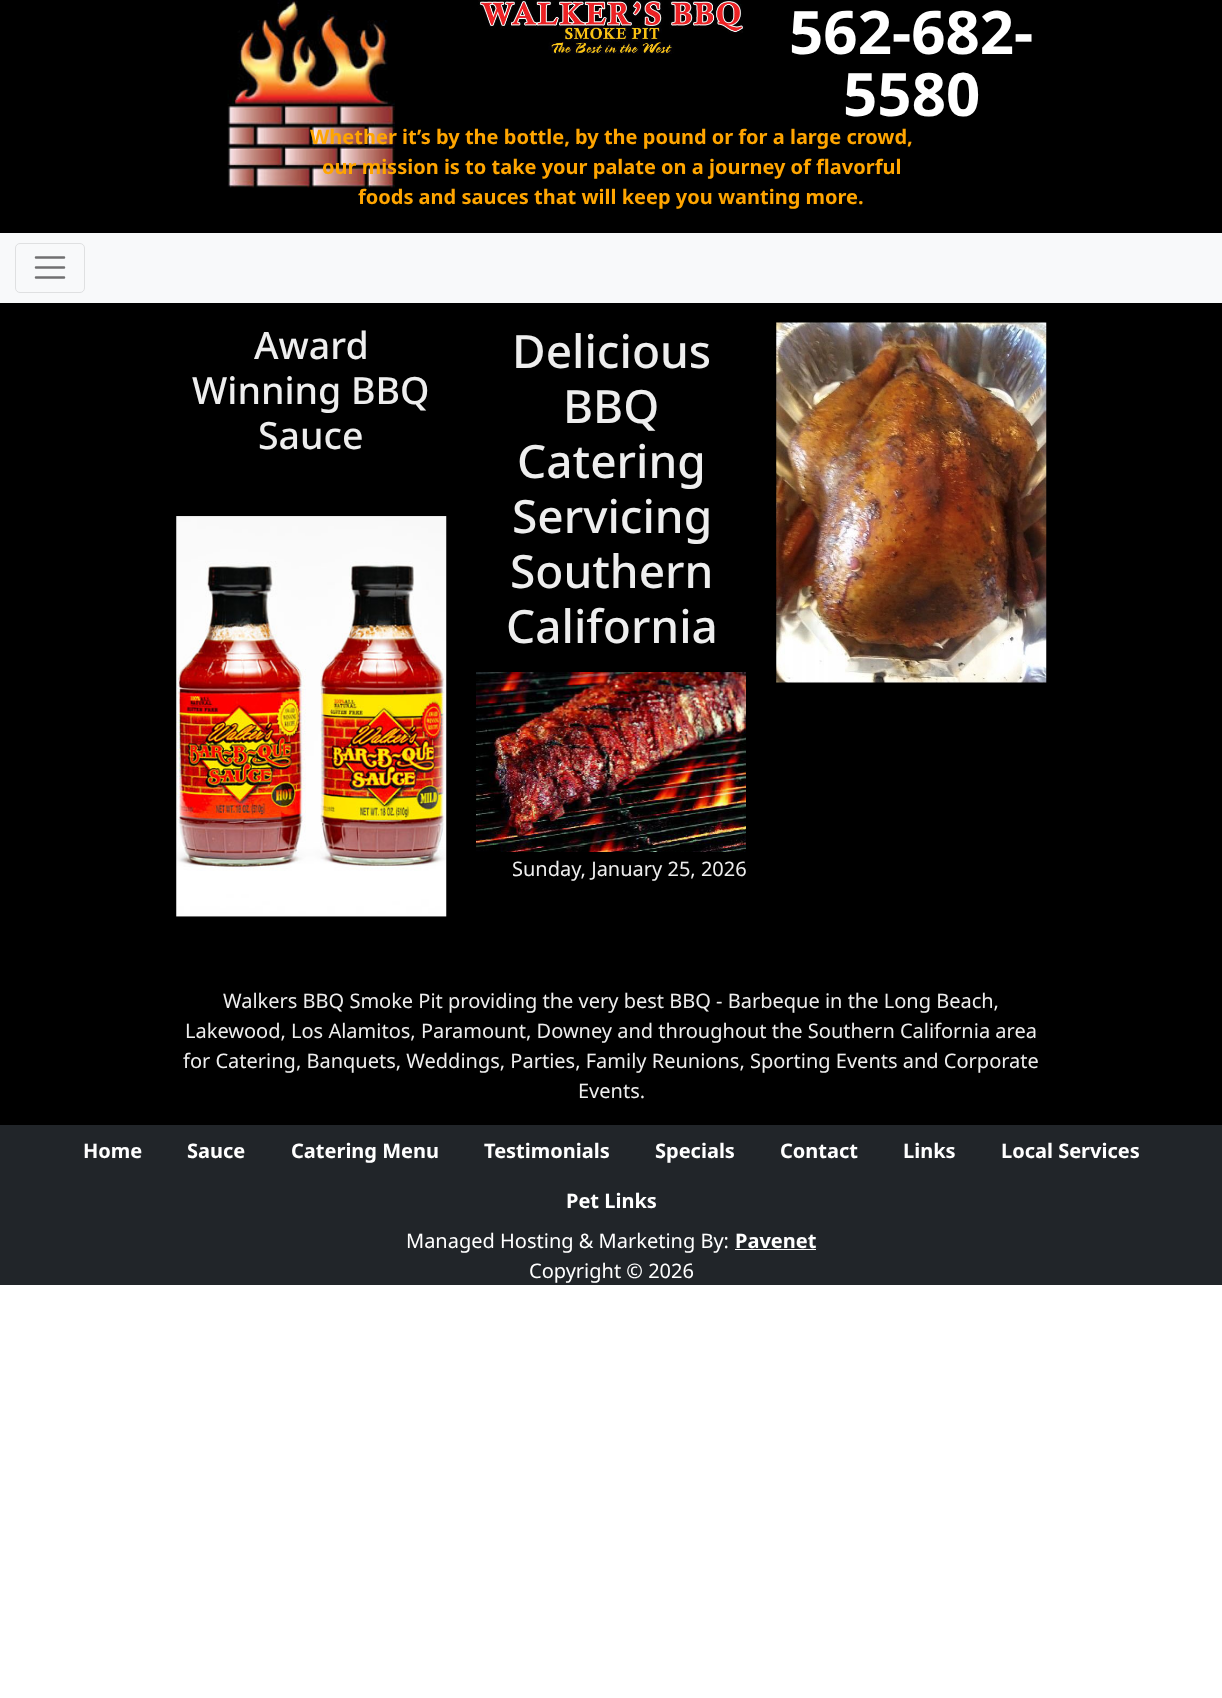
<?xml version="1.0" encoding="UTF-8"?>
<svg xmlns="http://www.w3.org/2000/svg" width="1222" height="1698">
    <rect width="100%" height="100%" fill="#FFFFFF"/>
    <rect x="0" y="0" width="1222" height="1125" fill="#000000"/>
    <image x="227" y="0" width="168" height="188" href="img_01.png"/>
    <image x="478" y="0" width="267" height="54" href="img_02.png"/>
    <text x="789" y="54" font-family="Noto Sans" font-size="60" font-weight="700" fill="#FFFFFF">562-682-</text>
    <text x="843" y="116" font-family="Noto Sans" font-size="60" font-weight="700" fill="#FFFFFF">5580</text>
    <text x="310" y="144" font-family="Noto Sans" font-size="20" font-weight="700" fill="#FFA500">Whether it’s by the bottle, by the pound or for a large crowd,</text>
    <text x="322" y="174" font-family="Noto Sans" font-size="20" font-weight="700" fill="#FFA500">our mission is to take your palate on a journey of flavorful</text>
    <text x="358" y="204" font-family="Noto Sans" font-size="20" font-weight="700" fill="#FFA500">foods and sauces that will keep you wanting more.</text>
    <rect x="0" y="233" width="1222" height="70" fill="#F8F9FA"/>
    <rect x="15.5" y="243.5" width="69" height="49" rx="4.5" fill="none" stroke="#DFE0E1"/>
    <path d="M 36 257.5 H 64 M 36 267.5 H 64 M 36 277.5 H 64" fill="none" stroke="#707071" stroke-width="2.5" stroke-linecap="round"/>
    <text x="254" y="359" font-family="Noto Sans" font-size="37.5" font-weight="500" fill="#EEEEEE">Award</text>
    <text x="192" y="404" font-family="Noto Sans" font-size="37.5" font-weight="500" fill="#EEEEEE">Winning BBQ</text>
    <text x="258" y="449" font-family="Noto Sans" font-size="37.5" font-weight="500" fill="#EEEEEE">Sauce</text>
    <image x="176" y="516" width="271" height="401" href="img_03.png"/>
    <text x="512" y="368" font-family="Noto Sans" font-size="46" font-weight="500" fill="#EEEEEE">Delicious</text>
    <text x="563" y="423" font-family="Noto Sans" font-size="46" font-weight="500" fill="#EEEEEE">BBQ</text>
    <text x="517" y="478" font-family="Noto Sans" font-size="46" font-weight="500" fill="#EEEEEE">Catering</text>
    <text x="512" y="533" font-family="Noto Sans" font-size="46" font-weight="500" fill="#EEEEEE">Servicing</text>
    <text x="510" y="588" font-family="Noto Sans" font-size="46" font-weight="500" fill="#EEEEEE">Southern</text>
    <text x="506" y="643" font-family="Noto Sans" font-size="46" font-weight="500" fill="#EEEEEE">California</text>
    <image x="476" y="672" width="270" height="180" href="img_04.png"/>
    <text x="512" y="876" font-family="Noto Sans" font-size="20" fill="#EEEEEE">Sunday, January 25, 2026</text>
    <image x="776" y="322" width="271" height="361" href="img_05.png"/>
    <text x="223" y="1008" font-family="Noto Sans" font-size="20" fill="#EEEEEE">Walkers BBQ Smoke Pit providing the very best BBQ - Barbeque in the Long Beach,</text>
    <text x="185" y="1038" font-family="Noto Sans" font-size="20" fill="#EEEEEE">Lakewood, Los Alamitos, Paramount, Downey and throughout the Southern California area</text>
    <text x="183" y="1068" font-family="Noto Sans" font-size="20" fill="#EEEEEE">for Catering, Banquets, Weddings, Parties, Family Reunions, Sporting Events and Corporate</text>
    <text x="578" y="1098" font-family="Noto Sans" font-size="20" fill="#EEEEEE">Events.</text>
    <rect x="0" y="1125" width="1222" height="160" fill="#212529"/>
    <text x="83" y="1158" font-family="Noto Sans" font-size="20" font-weight="700" fill="#FFFFFF">Home</text>
    <text x="187" y="1158" font-family="Noto Sans" font-size="20" font-weight="700" fill="#FFFFFF">Sauce</text>
    <text x="291" y="1158" font-family="Noto Sans" font-size="20" font-weight="700" fill="#FFFFFF">Catering Menu</text>
    <text x="484" y="1158" font-family="Noto Sans" font-size="20" font-weight="700" fill="#FFFFFF">Testimonials</text>
    <text x="655" y="1158" font-family="Noto Sans" font-size="20" font-weight="700" fill="#FFFFFF">Specials</text>
    <text x="780" y="1158" font-family="Noto Sans" font-size="20" font-weight="700" fill="#FFFFFF">Contact</text>
    <text x="903" y="1158" font-family="Noto Sans" font-size="20" font-weight="700" fill="#FFFFFF">Links</text>
    <text x="1001" y="1158" font-family="Noto Sans" font-size="20" font-weight="700" fill="#FFFFFF">Local Services</text>
    <text x="566" y="1208" font-family="Noto Sans" font-size="20" font-weight="700" fill="#FFFFFF">Pet Links</text>
    <text x="406" y="1248" font-family="Noto Sans" font-size="20" fill="#FFFFFF">Managed Hosting &amp; Marketing By:</text>
    <text x="735" y="1248" font-family="Noto Sans" font-size="20" font-weight="700" fill="#FFFFFF">Pavenet</text>
    <rect x="735" y="1249" width="81" height="1" fill="#FFFFFF"/>
    <text x="529" y="1278" font-family="Noto Sans" font-size="20" fill="#FFFFFF">Copyright © 2026</text>
</svg>
